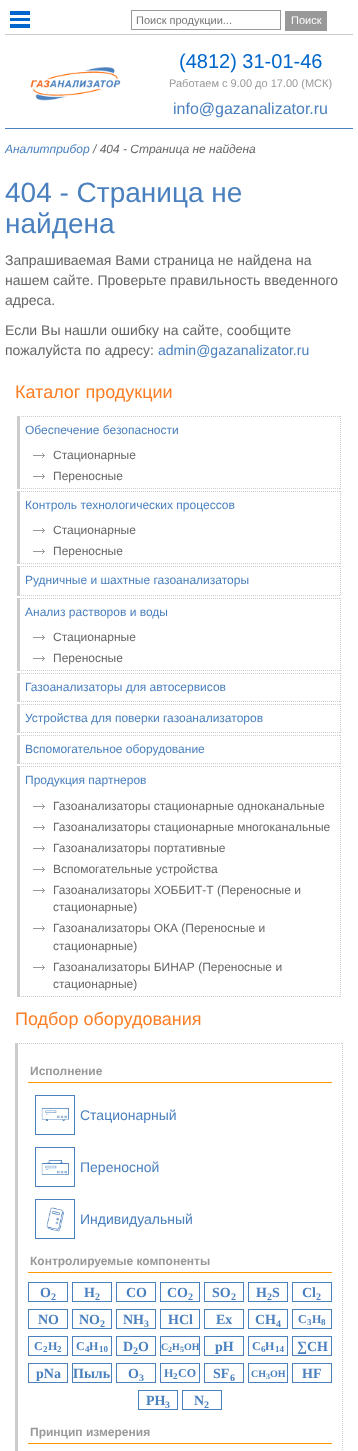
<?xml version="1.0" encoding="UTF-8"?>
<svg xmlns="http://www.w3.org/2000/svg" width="358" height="1451">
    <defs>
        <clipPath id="clip1"><rect x="136" y="14" width="138" height="12"/></clipPath>
    </defs>
    <rect width="100%" height="100%" fill="#FFFFFF"/>
    <rect x="10" y="11" width="20" height="4" fill="#0066CC"/>
    <rect x="10" y="18" width="20" height="3" fill="#0066CC"/>
    <rect x="10" y="24" width="20" height="4" fill="#0066CC"/>
    <rect x="5" y="34" width="348" height="1" fill="#CCCCCC"/>
    <rect x="131.5" y="10.5" width="149" height="19" fill="none" stroke="#999999"/>
    <g clip-path="url(#clip1)">
        <text x="136" y="24" font-family="Liberation Sans" font-size="11" fill="#757575">Поиск продукции...</text>
    </g>
    <rect x="285" y="11" width="42" height="20" fill="#999999"/>
    <text x="291" y="24" font-family="Liberation Sans" font-size="11" fill="#FFFFFF">Поиск</text>
    <rect x="5" y="128" width="348" height="1" fill="#4A80BE"/>
    <image x="30" y="67" width="91" height="34" href="img_01.png"/>
    <text x="179" y="68" font-family="Liberation Sans" font-size="20" fill="#0066CC">(4812) 31-01-46</text>
    <text x="169" y="87" font-family="Liberation Sans" font-size="11" fill="#999999">Работаем с 9.00 до 17.00 (МСК)</text>
    <text x="173" y="114" font-family="Liberation Sans" font-size="16" fill="#4A80BE">info@gazanalizator.ru</text>
    <text x="5" y="153" font-family="Liberation Sans" font-size="12" font-style="italic" fill="#4A80BE">Аналитприбор</text>
    <text x="93" y="153" font-family="Liberation Sans" font-size="12" font-style="italic" fill="#666666">/ 404 - Страница не найдена</text>
    <text font-family="Liberation Sans" font-size="28" fill="#4A80BE">
        <tspan x="5" y="202">404 - Страница не</tspan>
        <tspan x="5" y="233">найдена</tspan>
    </text>
    <text font-family="Liberation Sans" font-size="14" fill="#666666">
        <tspan x="5" y="265">Запрашиваемая Вами страница не найдена на</tspan>
        <tspan x="5" y="285">нашем сайте. Проверьте правильность введенного</tspan>
        <tspan x="5" y="305">адреса.</tspan>
    </text>
    <text font-family="Liberation Sans" font-size="14" fill="#666666">
        <tspan x="5" y="335">Если Вы нашли ошибку на сайте, сообщите</tspan>
        <tspan x="5" y="355">пожалуйста по адресу:</tspan>
    </text>
    <text x="158" y="355" font-family="Liberation Sans" font-size="14" fill="#4A80BE">admin@gazanalizator.ru</text>
    <text x="15" y="398" font-family="Liberation Sans" font-size="18" fill="#FB7E25">Каталог продукции</text>
    <path d="M 17 416.5 H 341" fill="none" stroke="#CCCCCC" stroke-dasharray="1 1"/>
    <path d="M 340.5 416 V 489" fill="none" stroke="#CCCCCC" stroke-dasharray="1 1"/>
    <path d="M 17 488.5 H 341" fill="none" stroke="#CCCCCC" stroke-dasharray="1 1"/>
    <rect x="17" y="416" width="3" height="73" fill="#CCCCCC"/>
    <text x="25" y="434" font-family="Liberation Sans" font-size="12" fill="#4A80BE">Обеспечение безопасности</text>
    <image x="33" y="453" width="12" height="5" href="img_02.png"/>
    <text x="53" y="459" font-family="Liberation Sans" font-size="12" fill="#666666">Стационарные</text>
    <image x="33" y="474" width="12" height="5" href="img_02.png"/>
    <text x="53" y="480" font-family="Liberation Sans" font-size="12" fill="#666666">Переносные</text>
    <path d="M 17 491.5 H 341" fill="none" stroke="#CCCCCC" stroke-dasharray="1 1"/>
    <path d="M 340.5 491 V 564" fill="none" stroke="#CCCCCC" stroke-dasharray="1 1"/>
    <path d="M 17 563.5 H 341" fill="none" stroke="#CCCCCC" stroke-dasharray="1 1"/>
    <rect x="17" y="491" width="3" height="73" fill="#CCCCCC"/>
    <text x="25" y="509" font-family="Liberation Sans" font-size="12" fill="#4A80BE">Контроль технологических процессов</text>
    <image x="33" y="528" width="12" height="5" href="img_02.png"/>
    <text x="53" y="534" font-family="Liberation Sans" font-size="12" fill="#666666">Стационарные</text>
    <image x="33" y="549" width="12" height="5" href="img_02.png"/>
    <text x="53" y="555" font-family="Liberation Sans" font-size="12" fill="#666666">Переносные</text>
    <path d="M 17 566.5 H 341" fill="none" stroke="#CCCCCC" stroke-dasharray="1 1"/>
    <path d="M 340.5 566 V 596" fill="none" stroke="#CCCCCC" stroke-dasharray="1 1"/>
    <path d="M 17 595.5 H 341" fill="none" stroke="#CCCCCC" stroke-dasharray="1 1"/>
    <rect x="17" y="566" width="3" height="30" fill="#CCCCCC"/>
    <text x="25" y="584" font-family="Liberation Sans" font-size="12" fill="#4A80BE">Рудничные и шахтные газоанализаторы</text>
    <path d="M 17 598.5 H 341" fill="none" stroke="#CCCCCC" stroke-dasharray="1 1"/>
    <path d="M 340.5 598 V 671" fill="none" stroke="#CCCCCC" stroke-dasharray="1 1"/>
    <path d="M 17 670.5 H 341" fill="none" stroke="#CCCCCC" stroke-dasharray="1 1"/>
    <rect x="17" y="598" width="3" height="73" fill="#CCCCCC"/>
    <text x="25" y="616" font-family="Liberation Sans" font-size="12" fill="#4A80BE">Анализ растворов и воды</text>
    <image x="33" y="635" width="12" height="5" href="img_02.png"/>
    <text x="53" y="641" font-family="Liberation Sans" font-size="12" fill="#666666">Стационарные</text>
    <image x="33" y="656" width="12" height="5" href="img_02.png"/>
    <text x="53" y="662" font-family="Liberation Sans" font-size="12" fill="#666666">Переносные</text>
    <path d="M 17 673.5 H 341" fill="none" stroke="#CCCCCC" stroke-dasharray="1 1"/>
    <path d="M 340.5 673 V 702" fill="none" stroke="#CCCCCC" stroke-dasharray="1 1"/>
    <path d="M 17 701.5 H 341" fill="none" stroke="#CCCCCC" stroke-dasharray="1 1"/>
    <rect x="17" y="673" width="3" height="29" fill="#CCCCCC"/>
    <text x="25" y="691" font-family="Liberation Sans" font-size="12" fill="#4A80BE">Газоанализаторы для автосервисов</text>
    <path d="M 17 704.5 H 341" fill="none" stroke="#CCCCCC" stroke-dasharray="1 1"/>
    <path d="M 340.5 704 V 733" fill="none" stroke="#CCCCCC" stroke-dasharray="1 1"/>
    <path d="M 17 732.5 H 341" fill="none" stroke="#CCCCCC" stroke-dasharray="1 1"/>
    <rect x="17" y="704" width="3" height="29" fill="#CCCCCC"/>
    <text x="25" y="722" font-family="Liberation Sans" font-size="12" fill="#4A80BE">Устройства для поверки газоанализаторов</text>
    <path d="M 17 735.5 H 341" fill="none" stroke="#CCCCCC" stroke-dasharray="1 1"/>
    <path d="M 340.5 735 V 764" fill="none" stroke="#CCCCCC" stroke-dasharray="1 1"/>
    <path d="M 17 763.5 H 341" fill="none" stroke="#CCCCCC" stroke-dasharray="1 1"/>
    <rect x="17" y="735" width="3" height="29" fill="#CCCCCC"/>
    <text x="25" y="753" font-family="Liberation Sans" font-size="12" fill="#4A80BE">Вспомогательное оборудование</text>
    <path d="M 17 766.5 H 341" fill="none" stroke="#CCCCCC" stroke-dasharray="1 1"/>
    <path d="M 340.5 766 V 997" fill="none" stroke="#CCCCCC" stroke-dasharray="1 1"/>
    <path d="M 17 996.5 H 341" fill="none" stroke="#CCCCCC" stroke-dasharray="1 1"/>
    <rect x="17" y="766" width="3" height="231" fill="#CCCCCC"/>
    <text x="25" y="784" font-family="Liberation Sans" font-size="12" fill="#4A80BE">Продукция партнеров</text>
    <image x="33" y="804" width="12" height="5" href="img_02.png"/>
    <text x="53" y="810" font-family="Liberation Sans" font-size="12" fill="#666666">Газоанализаторы стационарные одноканальные</text>
    <image x="33" y="825" width="12" height="5" href="img_02.png"/>
    <text x="53" y="831" font-family="Liberation Sans" font-size="12" fill="#666666">Газоанализаторы стационарные многоканальные</text>
    <image x="33" y="846" width="12" height="5" href="img_02.png"/>
    <text x="53" y="852" font-family="Liberation Sans" font-size="12" fill="#666666">Газоанализаторы портативные</text>
    <image x="33" y="867" width="12" height="5" href="img_02.png"/>
    <text x="53" y="873" font-family="Liberation Sans" font-size="12" fill="#666666">Вспомогательные устройства</text>
    <image x="33" y="888" width="12" height="5" href="img_02.png"/>
    <text font-family="Liberation Sans" font-size="12" fill="#666666">
        <tspan x="53" y="894">Газоанализаторы ХОББИТ-Т (Переносные и</tspan>
        <tspan x="53" y="911">стационарные)</tspan>
    </text>
    <image x="33" y="926" width="12" height="5" href="img_02.png"/>
    <text font-family="Liberation Sans" font-size="12" fill="#666666">
        <tspan x="53" y="932">Газоанализаторы ОКА (Переносные и</tspan>
        <tspan x="53" y="950">стационарные)</tspan>
    </text>
    <image x="33" y="965" width="12" height="5" href="img_02.png"/>
    <text font-family="Liberation Sans" font-size="12" fill="#666666">
        <tspan x="53" y="971">Газоанализаторы БИНАР (Переносные и</tspan>
        <tspan x="53" y="988">стационарные)</tspan>
    </text>
    <text x="15" y="1025" font-family="Liberation Sans" font-size="18" fill="#FB7E25">Подбор оборудования</text>
    <path d="M 15 1043.5 H 343" fill="none" stroke="#CCCCCC" stroke-dasharray="1 1"/>
    <path d="M 342.5 1043 V 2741" fill="none" stroke="#CCCCCC" stroke-dasharray="1 1"/>
    <rect x="15" y="1043" width="3" height="408" fill="#CCCCCC"/>
    <rect x="28" y="1082" width="304" height="1" fill="#FF9900"/>
    <text x="30" y="1075" font-family="Liberation Sans" font-size="12" font-weight="700" fill="#999999">Исполнение</text>
    <rect x="35.5" y="1095.5" width="39" height="39" fill="none" stroke="#4A80BE"/>
    <image x="41" y="1107" width="28" height="14" href="img_03.png"/>
    <text x="80" y="1120" font-family="Liberation Sans" font-size="14" fill="#4A80BE">Стационарный</text>
    <rect x="35.5" y="1147.5" width="39" height="39" fill="none" stroke="#4A80BE"/>
    <image x="41" y="1160" width="28" height="15" href="img_04.png"/>
    <text x="80" y="1172" font-family="Liberation Sans" font-size="14" fill="#4A80BE">Переносной</text>
    <rect x="35.5" y="1199.5" width="39" height="39" fill="none" stroke="#4A80BE"/>
    <image x="46" y="1207" width="18" height="25" href="img_05.png"/>
    <text x="80" y="1224" font-family="Liberation Sans" font-size="14" fill="#4A80BE">Индивидуальный</text>
    <rect x="28" y="1272" width="304" height="1" fill="#FF9900"/>
    <text x="30" y="1265" font-family="Liberation Sans" font-size="12" font-weight="700" fill="#999999">Контролируемые компоненты</text>
    <rect x="28.5" y="1282.5" width="39" height="19" fill="none" stroke="#4A80BE"/>
    <text x="40" y="1297" font-family="Liberation Serif" font-size="14" font-weight="700" fill="#4A80BE">O</text>
    <text x="51" y="1300" font-family="Liberation Serif" font-size="10" font-weight="700" fill="#4A80BE">2</text>
    <rect x="72.5" y="1282.5" width="39" height="19" fill="none" stroke="#4A80BE"/>
    <text x="84" y="1297" font-family="Liberation Serif" font-size="14" font-weight="700" fill="#4A80BE">H</text>
    <text x="95" y="1300" font-family="Liberation Serif" font-size="10" font-weight="700" fill="#4A80BE">2</text>
    <rect x="116.5" y="1282.5" width="39" height="19" fill="none" stroke="#4A80BE"/>
    <text x="126" y="1297" font-family="Liberation Serif" font-size="14" font-weight="700" fill="#4A80BE">CO</text>
    <rect x="160.5" y="1282.5" width="39" height="19" fill="none" stroke="#4A80BE"/>
    <text x="167" y="1297" font-family="Liberation Serif" font-size="14" font-weight="700" fill="#4A80BE">CO</text>
    <text x="188" y="1300" font-family="Liberation Serif" font-size="10" font-weight="700" fill="#4A80BE">2</text>
    <rect x="204.5" y="1282.5" width="39" height="19" fill="none" stroke="#4A80BE"/>
    <text x="212" y="1297" font-family="Liberation Serif" font-size="14" font-weight="700" fill="#4A80BE">SO</text>
    <text x="231" y="1300" font-family="Liberation Serif" font-size="10" font-weight="700" fill="#4A80BE">2</text>
    <rect x="248.5" y="1282.5" width="39" height="19" fill="none" stroke="#4A80BE"/>
    <text x="256" y="1297" font-family="Liberation Serif" font-size="14" font-weight="700" fill="#4A80BE">H</text>
    <text x="267" y="1300" font-family="Liberation Serif" font-size="10" font-weight="700" fill="#4A80BE">2</text>
    <text x="272" y="1297" font-family="Liberation Serif" font-size="14" font-weight="700" fill="#4A80BE">S</text>
    <rect x="292.5" y="1282.5" width="39" height="19" fill="none" stroke="#4A80BE"/>
    <text x="302" y="1297" font-family="Liberation Serif" font-size="14" font-weight="700" fill="#4A80BE">Cl</text>
    <text x="316" y="1300" font-family="Liberation Serif" font-size="10" font-weight="700" fill="#4A80BE">2</text>
    <rect x="28.5" y="1309.5" width="39" height="19" fill="none" stroke="#4A80BE"/>
    <text x="38" y="1324" font-family="Liberation Serif" font-size="14" font-weight="700" fill="#4A80BE">NO</text>
    <rect x="72.5" y="1309.5" width="39" height="19" fill="none" stroke="#4A80BE"/>
    <text x="79" y="1324" font-family="Liberation Serif" font-size="14" font-weight="700" fill="#4A80BE">NO</text>
    <text x="100" y="1327" font-family="Liberation Serif" font-size="10" font-weight="700" fill="#4A80BE">2</text>
    <rect x="116.5" y="1309.5" width="39" height="19" fill="none" stroke="#4A80BE"/>
    <text x="123" y="1324" font-family="Liberation Serif" font-size="14" font-weight="700" fill="#4A80BE">NH</text>
    <text x="144" y="1327" font-family="Liberation Serif" font-size="10" font-weight="700" fill="#4A80BE">3</text>
    <rect x="160.5" y="1309.5" width="39" height="19" fill="none" stroke="#4A80BE"/>
    <text x="168" y="1324" font-family="Liberation Serif" font-size="14" font-weight="700" fill="#4A80BE">HCl</text>
    <rect x="204.5" y="1309.5" width="39" height="19" fill="none" stroke="#4A80BE"/>
    <text x="216" y="1324" font-family="Liberation Serif" font-size="14" font-weight="700" fill="#4A80BE">Ex</text>
    <rect x="248.5" y="1309.5" width="39" height="19" fill="none" stroke="#4A80BE"/>
    <text x="255" y="1324" font-family="Liberation Serif" font-size="14" font-weight="700" fill="#4A80BE">CH</text>
    <text x="276" y="1327" font-family="Liberation Serif" font-size="10" font-weight="700" fill="#4A80BE">4</text>
    <rect x="292.5" y="1309.5" width="39" height="19" fill="none" stroke="#4A80BE"/>
    <text x="298" y="1323" font-family="Liberation Serif" font-size="12" font-weight="700" fill="#4A80BE">C</text>
    <text x="312" y="1323" font-family="Liberation Serif" font-size="12" font-weight="700" fill="#4A80BE">H</text>
    <text x="307" y="1325" font-family="Liberation Serif" font-size="9" font-weight="700" fill="#4A80BE">3</text>
    <text x="321" y="1325" font-family="Liberation Serif" font-size="9" font-weight="700" fill="#4A80BE">8</text>
    <rect x="28.5" y="1336.5" width="39" height="19" fill="none" stroke="#4A80BE"/>
    <text x="34" y="1350" font-family="Liberation Serif" font-size="12" font-weight="700" fill="#4A80BE">C</text>
    <text x="48" y="1350" font-family="Liberation Serif" font-size="12" font-weight="700" fill="#4A80BE">H</text>
    <text x="43" y="1352" font-family="Liberation Serif" font-size="9" font-weight="700" fill="#4A80BE">2</text>
    <text x="57" y="1352" font-family="Liberation Serif" font-size="9" font-weight="700" fill="#4A80BE">2</text>
    <rect x="72.5" y="1336.5" width="39" height="19" fill="none" stroke="#4A80BE"/>
    <text x="76" y="1350" font-family="Liberation Serif" font-size="12" font-weight="700" fill="#4A80BE">C</text>
    <text x="89" y="1350" font-family="Liberation Serif" font-size="12" font-weight="700" fill="#4A80BE">H</text>
    <text x="85" y="1352" font-family="Liberation Serif" font-size="9" font-weight="700" fill="#4A80BE">4</text>
    <text x="99" y="1352" font-family="Liberation Serif" font-size="9" font-weight="700" fill="#4A80BE">10</text>
    <rect x="116.5" y="1336.5" width="39" height="19" fill="none" stroke="#4A80BE"/>
    <text x="123" y="1351" font-family="Liberation Serif" font-size="14" font-weight="700" fill="#4A80BE">D</text>
    <text x="133" y="1354" font-family="Liberation Serif" font-size="10" font-weight="700" fill="#4A80BE">2</text>
    <text x="138" y="1351" font-family="Liberation Serif" font-size="14" font-weight="700" fill="#4A80BE">O</text>
    <rect x="160.5" y="1336.5" width="39" height="19" fill="none" stroke="#4A80BE"/>
    <text x="161" y="1350" font-family="Liberation Serif" font-size="10" font-weight="700" fill="#4A80BE">C</text>
    <text x="168" y="1352" font-family="Liberation Serif" font-size="8" font-weight="700" fill="#4A80BE">2</text>
    <text x="172" y="1350" font-family="Liberation Serif" font-size="10" font-weight="700" fill="#4A80BE">H</text>
    <text x="180" y="1352" font-family="Liberation Serif" font-size="8" font-weight="700" fill="#4A80BE">5</text>
    <text x="184" y="1350" font-family="Liberation Serif" font-size="10" font-weight="700" fill="#4A80BE">OH</text>
    <rect x="204.5" y="1336.5" width="39" height="19" fill="none" stroke="#4A80BE"/>
    <text x="215" y="1351" font-family="Liberation Serif" font-size="14" font-weight="700" fill="#4A80BE">pH</text>
    <rect x="248.5" y="1336.5" width="39" height="19" fill="none" stroke="#4A80BE"/>
    <text x="252" y="1350" font-family="Liberation Serif" font-size="12" font-weight="700" fill="#4A80BE">C</text>
    <text x="265" y="1350" font-family="Liberation Serif" font-size="12" font-weight="700" fill="#4A80BE">H</text>
    <text x="261" y="1352" font-family="Liberation Serif" font-size="9" font-weight="700" fill="#4A80BE">6</text>
    <text x="275" y="1352" font-family="Liberation Serif" font-size="9" font-weight="700" fill="#4A80BE">14</text>
    <rect x="292.5" y="1336.5" width="39" height="19" fill="none" stroke="#4A80BE"/>
    <text x="297" y="1351" font-family="Liberation Serif" font-size="14" font-weight="700" fill="#4A80BE">∑CH</text>
    <rect x="28.5" y="1363.5" width="39" height="19" fill="none" stroke="#4A80BE"/>
    <text x="36" y="1378" font-family="Liberation Serif" font-size="14" font-weight="700" fill="#4A80BE">pNa</text>
    <rect x="72.5" y="1363.5" width="39" height="19" fill="none" stroke="#4A80BE"/>
    <text x="73" y="1378" font-family="Liberation Serif" font-size="14" font-weight="700" fill="#4A80BE">Пыль</text>
    <rect x="116.5" y="1363.5" width="39" height="19" fill="none" stroke="#4A80BE"/>
    <text x="128" y="1378" font-family="Liberation Serif" font-size="14" font-weight="700" fill="#4A80BE">O</text>
    <text x="139" y="1381" font-family="Liberation Serif" font-size="10" font-weight="700" fill="#4A80BE">3</text>
    <rect x="160.5" y="1363.5" width="39" height="19" fill="none" stroke="#4A80BE"/>
    <text x="164" y="1377" font-family="Liberation Serif" font-size="12" font-weight="700" fill="#4A80BE">H</text>
    <text x="173" y="1379" font-family="Liberation Serif" font-size="9" font-weight="700" fill="#4A80BE">2</text>
    <text x="178" y="1377" font-family="Liberation Serif" font-size="12" font-weight="700" fill="#4A80BE">CO</text>
    <rect x="204.5" y="1363.5" width="39" height="19" fill="none" stroke="#4A80BE"/>
    <text x="213" y="1378" font-family="Liberation Serif" font-size="14" font-weight="700" fill="#4A80BE">SF</text>
    <text x="230" y="1381" font-family="Liberation Serif" font-size="10" font-weight="700" fill="#4A80BE">6</text>
    <rect x="248.5" y="1363.5" width="39" height="19" fill="none" stroke="#4A80BE"/>
    <text x="251" y="1377" font-family="Liberation Serif" font-size="10" font-weight="700" fill="#4A80BE">CH</text>
    <text x="266" y="1379" font-family="Liberation Serif" font-size="8" font-weight="700" fill="#4A80BE">3</text>
    <text x="270" y="1377" font-family="Liberation Serif" font-size="10" font-weight="700" fill="#4A80BE">OH</text>
    <rect x="292.5" y="1363.5" width="39" height="19" fill="none" stroke="#4A80BE"/>
    <text x="302" y="1378" font-family="Liberation Serif" font-size="14" font-weight="700" fill="#4A80BE">HF</text>
    <rect x="138.5" y="1390.5" width="39" height="19" fill="none" stroke="#4A80BE"/>
    <text x="146" y="1405" font-family="Liberation Serif" font-size="14" font-weight="700" fill="#4A80BE">PH</text>
    <text x="165" y="1408" font-family="Liberation Serif" font-size="10" font-weight="700" fill="#4A80BE">3</text>
    <rect x="182.5" y="1390.5" width="39" height="19" fill="none" stroke="#4A80BE"/>
    <text x="194" y="1405" font-family="Liberation Serif" font-size="14" font-weight="700" fill="#4A80BE">N</text>
    <text x="204" y="1408" font-family="Liberation Serif" font-size="10" font-weight="700" fill="#4A80BE">2</text>
    <rect x="28" y="1443" width="304" height="1" fill="#FF9900"/>
    <text x="30" y="1436" font-family="Liberation Sans" font-size="12" font-weight="700" fill="#999999">Принцип измерения</text>
</svg>
